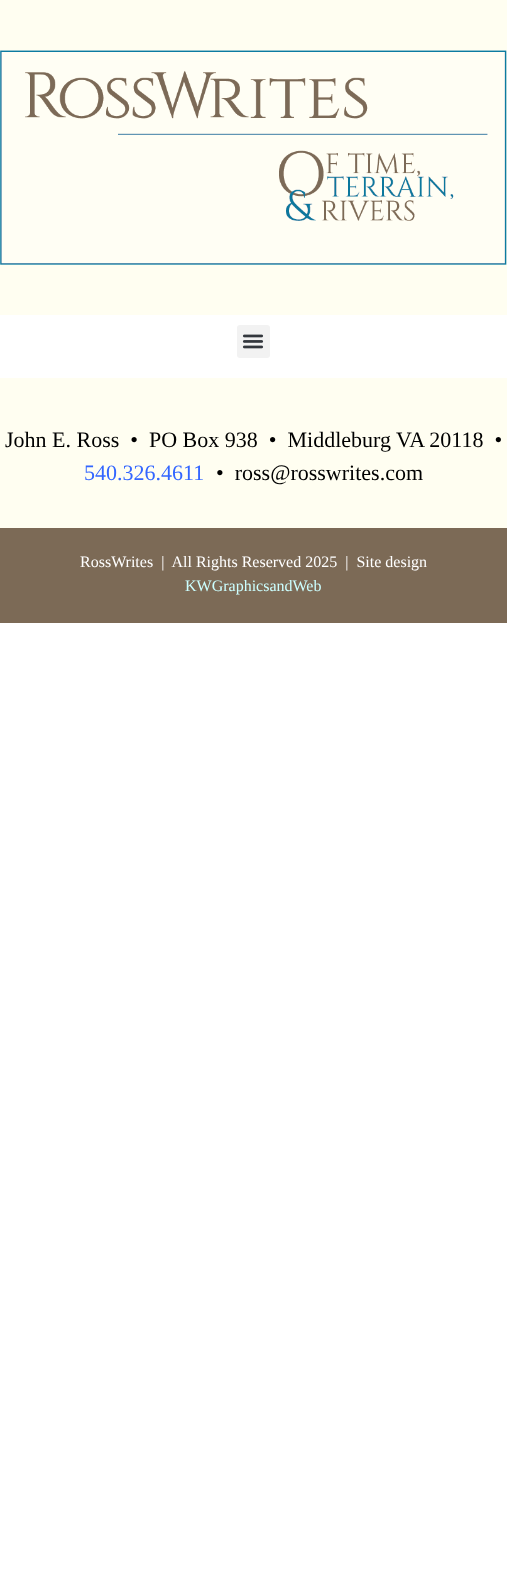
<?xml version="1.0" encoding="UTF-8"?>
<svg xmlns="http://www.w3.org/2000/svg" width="507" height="1580">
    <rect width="100%" height="100%" fill="#FFFFFF"/>
    <rect x="0" y="0" width="507" height="315" fill="#FFFEF1"/>
    <image x="0" y="50" width="507" height="215" href="img_01.png"/>
    <rect x="237" y="325" width="33" height="33" rx="3" fill="#F2F2F2"/>
    <image x="242" y="334" width="22" height="15" href="img_02.png"/>
    <rect x="0" y="378" width="507" height="150" fill="#FFFEF1"/>
    <text x="5" y="447" font-family="Liberation Serif" font-size="22" fill="#000000" xml:space="preserve">John E. Ross  •  PO Box 938  •  Middleburg VA 20118  •</text>
    <text x="84" y="480" font-family="Liberation Serif" font-size="22" fill="#3366FF">540.326.4611</text>
    <text x="216" y="480" font-family="Liberation Serif" font-size="22" fill="#000000" xml:space="preserve">•  ross@rosswrites.com</text>
    <rect x="0" y="528" width="507" height="95" fill="#7C6A56"/>
    <text x="80" y="567" font-family="Liberation Serif" font-size="16" fill="#FFFFFF" xml:space="preserve">RossWrites  |  All Rights Reserved 2025  |  Site design</text>
    <text x="185" y="591" font-family="Liberation Serif" font-size="16" fill="#CCFFFF">KWGraphicsandWeb</text>
</svg>
